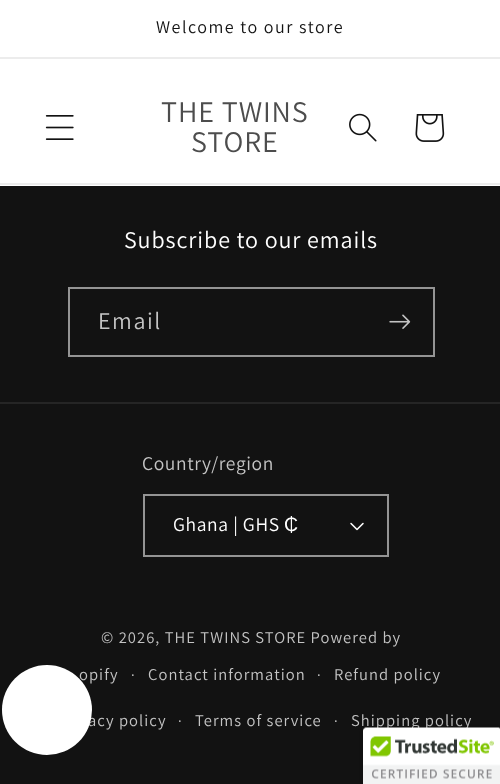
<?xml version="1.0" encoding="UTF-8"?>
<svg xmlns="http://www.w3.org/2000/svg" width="500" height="784">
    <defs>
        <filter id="blur1" x="-50%" y="-200%" width="200%" height="500%"><feGaussianBlur stdDeviation="4"/></filter>
    </defs>
    <rect width="100%" height="100%" fill="#FFFFFF"/>
    <rect x="0" y="57" width="500" height="2" fill="#ECECEC"/>
    <text x="156" y="33" font-family="Assistant" font-size="18" letter-spacing="1.5" fill="#121212">Welcome to our store</text>
    <rect x="0" y="183" width="500" height="2" fill="#ECECEC"/>
    <image x="45" y="115" width="29" height="25" href="img_01.png"/>
    <text x="161" y="122" font-family="Assistant" font-size="30" letter-spacing="0.9" fill="#4D4D4D">THE TWINS</text>
    <text x="191" y="152" font-family="Assistant" font-size="30" letter-spacing="0.9" fill="#4D4D4D">STORE</text>
    <image x="349" y="113" width="28" height="29" href="img_02.png"/>
    <image x="415" y="114" width="30" height="28" href="img_03.png"/>
    <rect x="0" y="186" width="500" height="598" fill="#121212"/>
    <text x="79" y="680" font-family="Assistant" font-size="16.5" letter-spacing="1.05" fill="#C4C4C4">opify</text>
    <text x="88" y="726" font-family="Assistant" font-size="16.5" letter-spacing="1.05" fill="#C4C4C4">acy policy</text>
    <circle cx="47" cy="710" r="45" fill="#FFFFFF"/>
    <text x="124" y="248" font-family="Assistant" font-size="24" letter-spacing="0.9" fill="#FFFFFF">Subscribe to our emails</text>
    <rect x="69" y="288" width="365" height="68" fill="none" stroke="#949494" stroke-width="2"/>
    <text x="98" y="329" font-family="Assistant" font-size="24" letter-spacing="1.5" fill="#C4C4C4">Email</text>
    <image x="389" y="314" width="22" height="15" href="img_04.png"/>
    <rect x="0" y="402" width="500" height="2" fill="#252525"/>
    <text x="142" y="470" font-family="Assistant" font-size="19.5" letter-spacing="0.6" fill="#C4C4C4">Country/region</text>
    <image x="350" y="522" width="14" height="9" href="img_05.png"/>
    <rect x="144" y="495" width="244" height="61" fill="none" stroke="#949494" stroke-width="2"/>
    <text x="173" y="531" font-family="Assistant" font-size="19.5" letter-spacing="0.6" fill="#FFFFFF">Ghana | GHS</text>
    <text x="284" y="531" font-family="Liberation Sans" font-size="19.5" letter-spacing="0.6" fill="#FFFFFF">₵</text>
    <text x="101" y="643" font-family="Assistant" font-size="16.5" letter-spacing="1.05" fill="#C4C4C4">© 2026, THE TWINS STORE Powered by</text>
    <text x="131" y="680" font-family="Assistant" font-size="15" letter-spacing="1.05" fill="#C4C4C4">·</text>
    <text x="148" y="680" font-family="Assistant" font-size="16.5" letter-spacing="1.05" fill="#C4C4C4">Contact information</text>
    <text x="317" y="680" font-family="Assistant" font-size="15" letter-spacing="1.05" fill="#C4C4C4">·</text>
    <text x="334" y="680" font-family="Assistant" font-size="16.5" letter-spacing="1.05" fill="#C4C4C4">Refund policy</text>
    <text x="178" y="726" font-family="Assistant" font-size="15" letter-spacing="1.05" fill="#C4C4C4">·</text>
    <text x="195" y="726" font-family="Assistant" font-size="16.5" letter-spacing="1.05" fill="#C4C4C4">Terms of service</text>
    <text x="334" y="726" font-family="Assistant" font-size="15" letter-spacing="1.05" fill="#C4C4C4">·</text>
    <text x="351" y="726" font-family="Assistant" font-size="16.5" letter-spacing="1.05" fill="#C4C4C4">Shipping policy</text>
    <rect x="363" y="728" width="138" height="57" rx="3" fill="#000000" fill-opacity="0.2" filter="url(#blur1)"/>
    <image x="363" y="727" width="137" height="57" href="img_06.png"/>
</svg>
